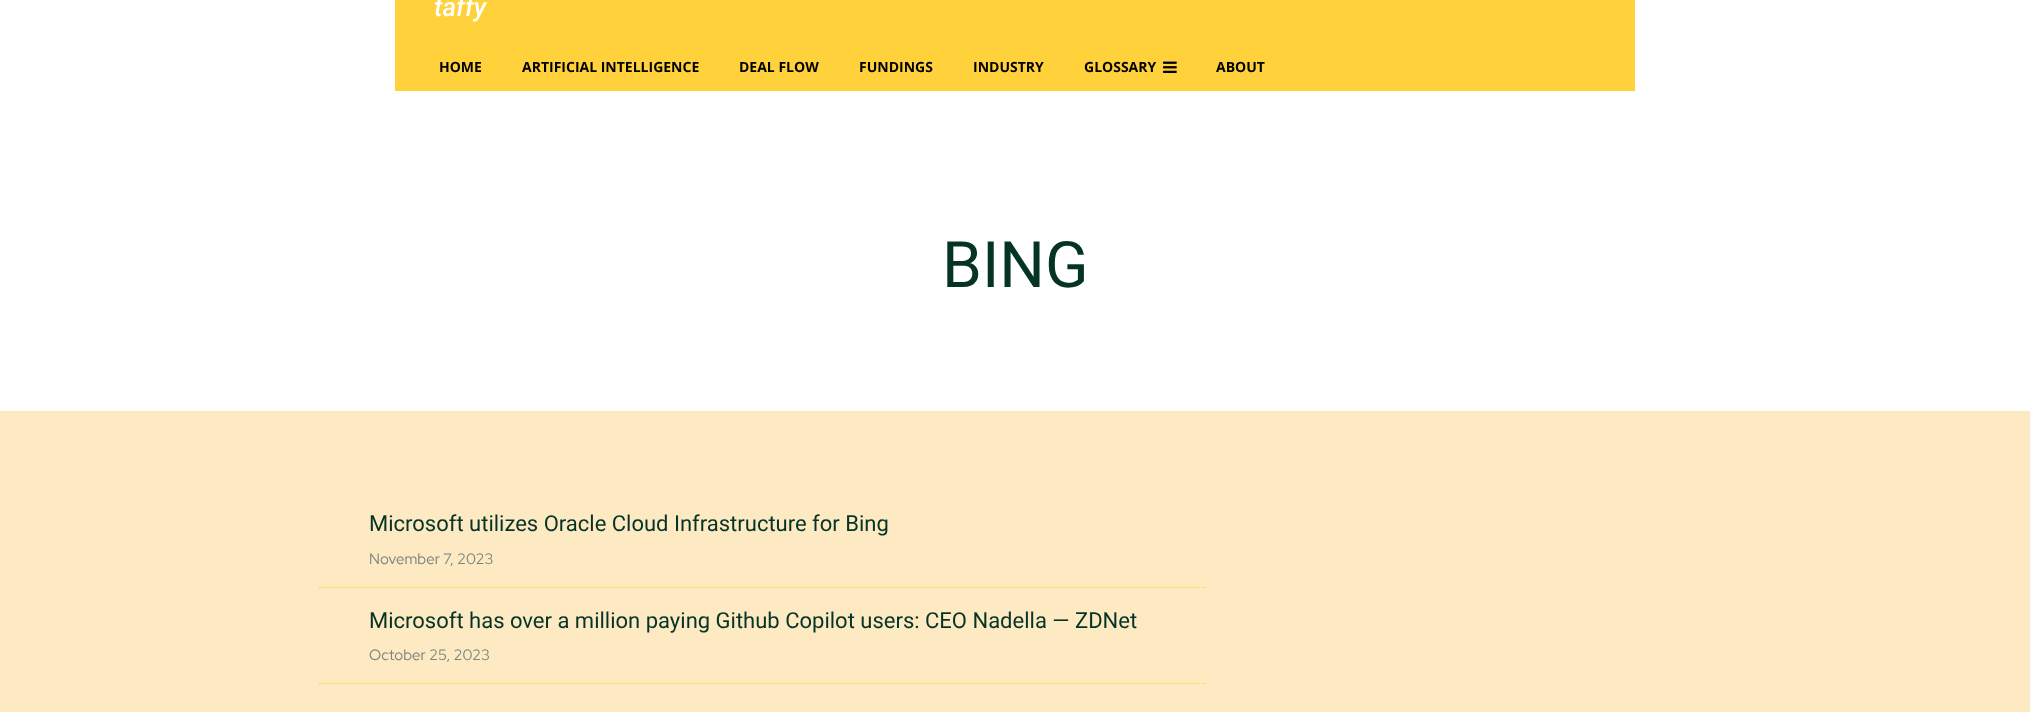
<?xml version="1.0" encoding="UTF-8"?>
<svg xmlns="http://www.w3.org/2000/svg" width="2030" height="712">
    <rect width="100%" height="100%" fill="#FFFFFF"/>
    <rect x="395" y="0" width="1240" height="91" fill="#FFD13A"/>
    <text x="434" y="16" font-family="Roboto" font-size="26" font-weight="500" font-style="italic" fill="#FFFFFF">taffy</text>
    <text x="439" y="72" font-family="Open Sans" font-size="14" font-weight="700" fill="#000000">HOME</text>
    <text x="522" y="72" font-family="Open Sans" font-size="14" font-weight="700" fill="#000000">ARTIFICIAL INTELLIGENCE</text>
    <text x="739" y="72" font-family="Open Sans" font-size="14" font-weight="700" fill="#000000">DEAL FLOW</text>
    <text x="859" y="72" font-family="Open Sans" font-size="14" font-weight="700" fill="#000000">FUNDINGS</text>
    <text x="973" y="72" font-family="Open Sans" font-size="14" font-weight="700" fill="#000000">INDUSTRY</text>
    <text x="1084" y="72" font-family="Open Sans" font-size="14" font-weight="700" fill="#000000">GLOSSARY</text>
    <image x="1163" y="61" width="14" height="12" href="img_01.png"/>
    <text x="1216" y="72" font-family="Open Sans" font-size="14" font-weight="700" fill="#000000">ABOUT</text>
    <text x="942" y="287" font-family="Roboto" font-size="64" fill="#053426">BING</text>
    <rect x="0" y="411" width="2030" height="301" fill="#FDE9C2"/>
    <text x="369" y="531" font-family="Roboto" font-size="22" fill="#053426">Microsoft utilizes Oracle Cloud Infrastructure for Bing</text>
    <text x="369" y="564" font-family="Red Hat Display" font-size="15" fill="#79847E">November 7, 2023</text>
    <path d="M 319 587.5 H 1207" fill="none" stroke="#FFD13A" stroke-dasharray="1 1"/>
    <text x="369" y="628" font-family="Roboto" font-size="22" fill="#053426">Microsoft has over a million paying Github Copilot users: CEO Nadella — ZDNet</text>
    <text x="369" y="660" font-family="Red Hat Display" font-size="15" fill="#79847E">October 25, 2023</text>
    <path d="M 319 683.5 H 1207" fill="none" stroke="#FFD13A" stroke-dasharray="1 1"/>
</svg>
